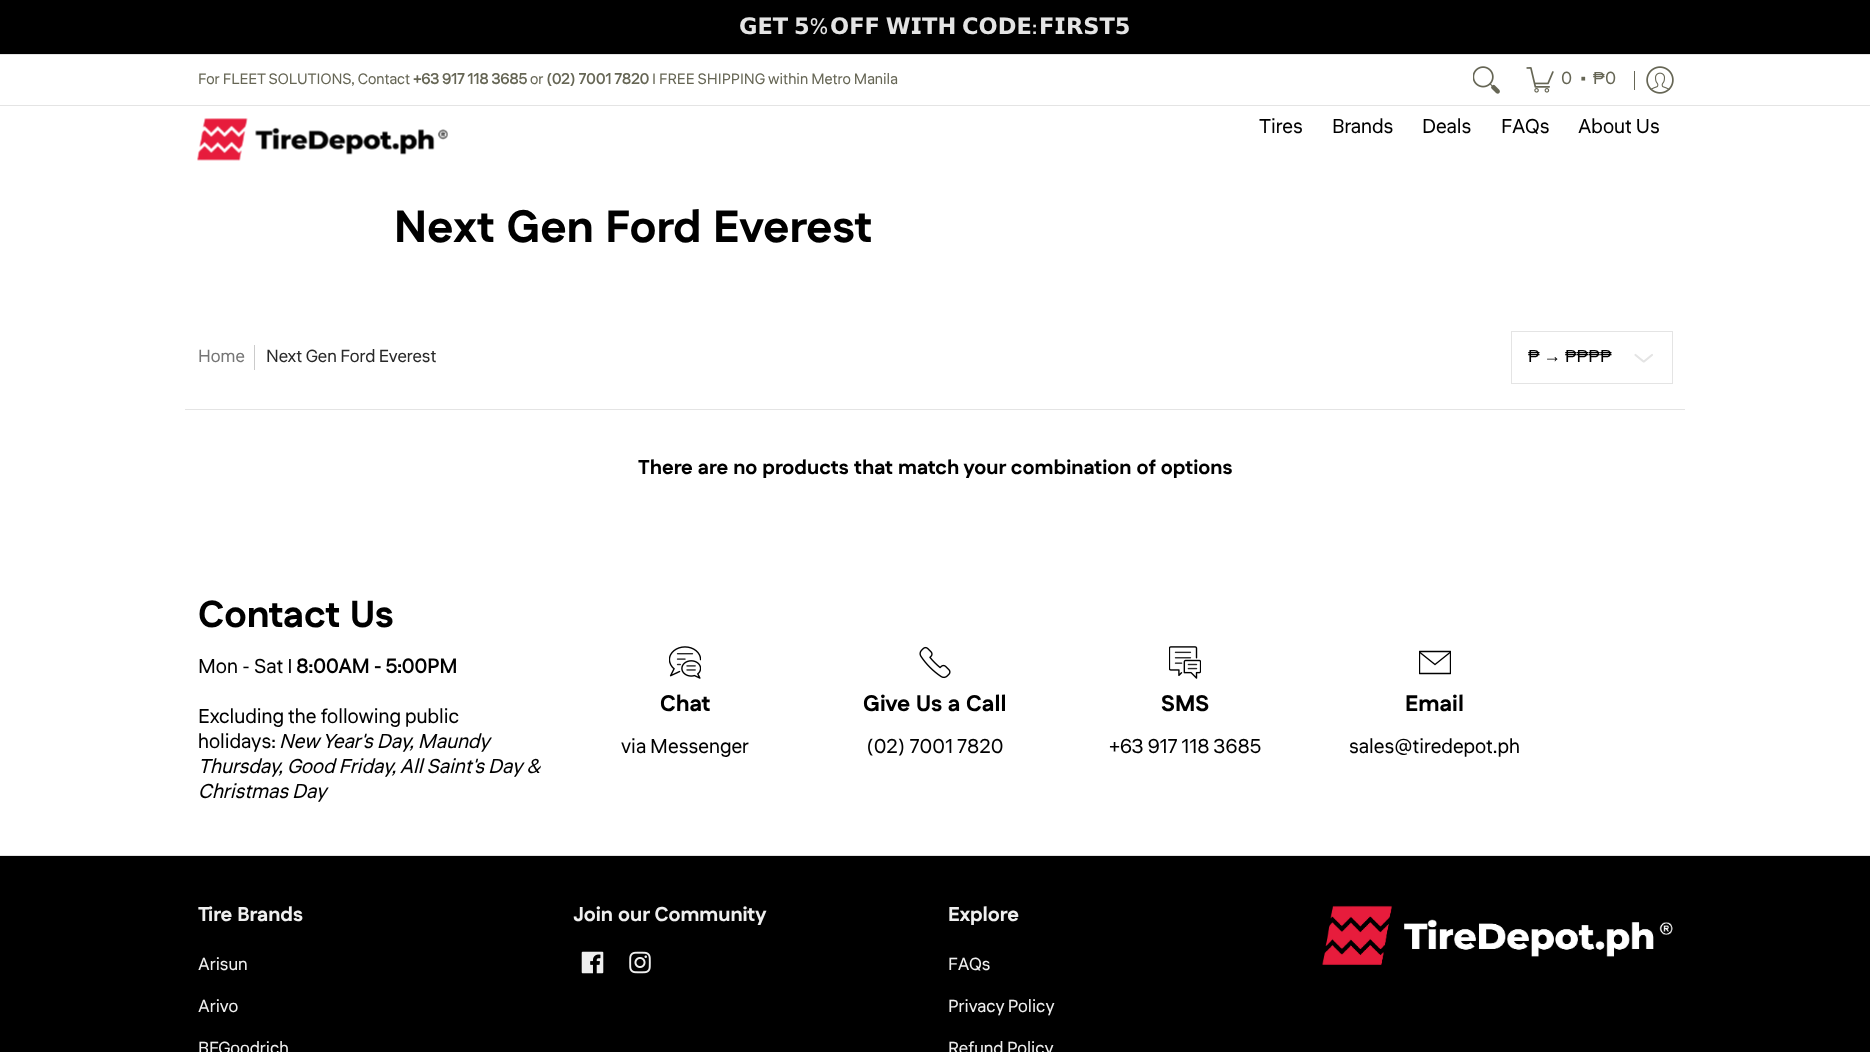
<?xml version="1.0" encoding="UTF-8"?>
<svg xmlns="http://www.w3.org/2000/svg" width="1870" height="1052">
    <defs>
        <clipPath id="clip1"><rect x="1419" y="646" width="32" height="33"/></clipPath>
    </defs>
    <rect width="100%" height="100%" fill="#FFFFFF"/>
    <rect x="0" y="0" width="1870" height="54" fill="#000000"/>
    <rect x="0" y="54" width="1870" height="1" fill="#E4E4E4"/>
    <text x="739" y="34" word-spacing="-2" font-family="DejaVu Sans" font-size="22.5" font-weight="700" fill="#E4E4E4">𝗚𝗘𝗧 𝟱</text>
    <text x="810" y="34" font-family="Liter" font-size="22.5" fill="#E4E4E4">%</text>
    <text x="830" y="34" word-spacing="-2" font-family="DejaVu Sans" font-size="22.5" font-weight="700" fill="#E4E4E4">𝗢𝗙𝗙 𝗪𝗜𝗧𝗛 𝗖𝗢𝗗𝗘</text>
    <text x="1032" y="34" font-family="Liter" font-size="22.5" fill="#E4E4E4">:</text>
    <text x="1039" y="34" font-family="DejaVu Sans" font-size="22.5" font-weight="700" fill="#E4E4E4">𝗙𝗜𝗥𝗦𝗧𝟱</text>
    <rect x="0" y="105" width="1870" height="1" fill="#E4E4E4"/>
    <text x="198" y="84" font-family="Liter" font-size="15" fill="#666655">For FLEET SOLUTIONS, Contact</text>
    <text x="413" y="84" font-family="Liter" font-size="15" font-weight="700" fill="#666655">+63 917 118 3685</text>
    <text x="530" y="84" font-family="Liter" font-size="15" fill="#666655">or</text>
    <text x="546" y="84" font-family="Liter" font-size="15" font-weight="700" fill="#666655">(02) 7001 7820</text>
    <text x="652" y="84" font-family="Liter" font-size="15" fill="#666655">| FREE SHIPPING within Metro Manila</text>
    <image x="1473" y="66" width="27" height="28" href="img_01.png"/>
    <image x="1526" y="67" width="28" height="26" href="img_02.png"/>
    <text x="1561" y="84" font-family="Liter" font-size="17.5" fill="#666655">0</text>
    <text x="1580" y="84" font-family="Liter" font-size="17.5" fill="#666655">•</text>
    <text x="1593" y="84" font-family="Liberation Sans" font-size="17.5" fill="#666655">₱</text>
    <text x="1605" y="84" font-family="Liter" font-size="17.5" fill="#666655">0</text>
    <rect x="1634" y="71" width="1" height="19" fill="#666655"/>
    <image x="1646" y="66" width="28" height="28" href="img_03.png"/>
    <image x="197" y="118" width="251" height="43" href="img_04.png"/>
    <text x="1259" y="133" font-family="Liter" font-size="20" fill="#000000">Tires</text>
    <text x="1332" y="133" font-family="Liter" font-size="20" fill="#000000">Brands</text>
    <text x="1422" y="133" font-family="Liter" font-size="20" fill="#000000">Deals</text>
    <text x="1501" y="133" font-family="Liter" font-size="20" fill="#000000">FAQs</text>
    <text x="1578" y="133" font-family="Liter" font-size="20" fill="#000000">About Us</text>
    <text x="394" y="242" font-family="Fustat" font-size="45" font-weight="800" fill="#000000">Next Gen Ford Everest</text>
    <rect x="185" y="409" width="1500" height="1" fill="#E4E4E4"/>
    <text x="198" y="362" font-family="Liter" font-size="17.5" fill="#767676">Home</text>
    <rect x="254" y="345" width="1" height="25" fill="#CBCBCB"/>
    <text x="266" y="362" font-family="Liter" font-size="17.5" fill="#292929">Next Gen Ford Everest</text>
    <rect x="1511.5" y="331.5" width="161" height="52" fill="none" stroke="#E4E4E4"/>
    <text x="1528" y="362" word-spacing="-1" font-family="Liberation Sans" font-size="17.5" fill="#000000">₱ → ₱₱₱₱</text>
    <path d="M 1635.5 355 L 1643.5 361.5 H 1644 L 1652 355" fill="none" stroke="#E4E4E4" stroke-width="2.2" stroke-linecap="round" stroke-linejoin="round"/>
    <text x="638" y="474" font-family="Fustat" font-size="20" font-weight="800" fill="#000000">There are no products that match your combination of options</text>
    <rect x="0" y="855" width="1870" height="1" fill="#E4E4E4"/>
    <text x="198" y="627" font-family="Fustat" font-size="37.5" font-weight="800" fill="#000000">Contact Us</text>
    <text x="198" y="673" font-family="Liter" font-size="20" fill="#000000">Mon - Sat |</text>
    <text x="296" y="673" font-family="Liter" font-size="20" font-weight="700" fill="#000000">8:00AM - 5:00PM</text>
    <text font-family="Liter" font-size="20" fill="#000000">
        <tspan x="198" y="723">Excluding the following public</tspan>
        <tspan x="198" y="748">holidays:</tspan>
    </text>
    <text x="279" y="748" font-family="Liter" font-size="20" font-style="italic" fill="#000000">New Year's Day, Maundy</text>
    <text font-family="Liter" font-size="20" font-style="italic" fill="#000000">
        <tspan x="198" y="773">Thursday, Good Friday, All Saint's Day &amp;</tspan>
        <tspan x="198" y="798">Christmas Day</tspan>
    </text>
    <image x="669" y="646" width="32" height="33" href="img_05.png"/>
    <text x="660" y="711" font-family="Fustat" font-size="22.5" font-weight="800" fill="#000000">Chat</text>
    <text x="621" y="753" font-family="Liter" font-size="20" fill="#000000">via Messenger</text>
    <image x="919" y="646" width="32" height="33" href="img_06.png"/>
    <text x="863" y="711" font-family="Fustat" font-size="22.5" font-weight="800" fill="#000000">Give Us a Call</text>
    <text x="866" y="753" font-family="Liter" font-size="20" fill="#000000">(02) 7001 7820</text>
    <image x="1169" y="646" width="32" height="33" href="img_07.png"/>
    <text x="1161" y="711" font-family="Fustat" font-size="22.5" font-weight="800" fill="#000000">SMS</text>
    <text x="1109" y="753" font-family="Liter" font-size="20" fill="#000000">+63 917 118 3685</text>
    <g clip-path="url(#clip1)">
        <path d="M 1419.5 651.5 H 1450.5 V 673.5 H 1419.5 Z" fill="none" stroke="#000000" stroke-width="1.4" stroke-linecap="round" stroke-linejoin="round"/>
    </g>
    <path d="M 1450 652.5 L 1435 664.5 L 1420 652.5" fill="none" stroke="#000000" stroke-width="1.4" stroke-linecap="round" stroke-linejoin="round"/>
    <text x="1405" y="711" font-family="Fustat" font-size="22.5" font-weight="800" fill="#000000">Email</text>
    <text x="1349" y="753" font-family="Liter" font-size="20" fill="#000000">sales@tiredepot.ph</text>
    <rect x="0" y="856" width="1870" height="196" fill="#000000"/>
    <text x="198" y="921" font-family="Fustat" font-size="20" font-weight="800" fill="#EFEFEF">Tire Brands</text>
    <text x="198" y="970" font-family="Liter" font-size="17.5" fill="#EFEFEF">Arisun</text>
    <text x="198" y="1012" font-family="Liter" font-size="17.5" fill="#EFEFEF">Arivo</text>
    <text x="198" y="1054" font-family="Liter" font-size="17.5" fill="#EFEFEF">BFGoodrich</text>
    <text x="573" y="921" font-family="Fustat" font-size="20" font-weight="800" fill="#EFEFEF">Join our Community</text>
    <image x="581" y="951" width="23" height="23" href="img_08.png"/>
    <image x="629" y="951" width="22" height="23" href="img_09.png"/>
    <text x="948" y="921" font-family="Fustat" font-size="20" font-weight="800" fill="#EFEFEF">Explore</text>
    <text x="948" y="970" font-family="Liter" font-size="17.5" fill="#EFEFEF">FAQs</text>
    <text x="948" y="1012" font-family="Liter" font-size="17.5" fill="#EFEFEF">Privacy Policy</text>
    <text x="948" y="1054" font-family="Liter" font-size="17.5" fill="#EFEFEF">Refund Policy</text>
    <image x="1322" y="905" width="351" height="60" href="img_10.png"/>
</svg>
